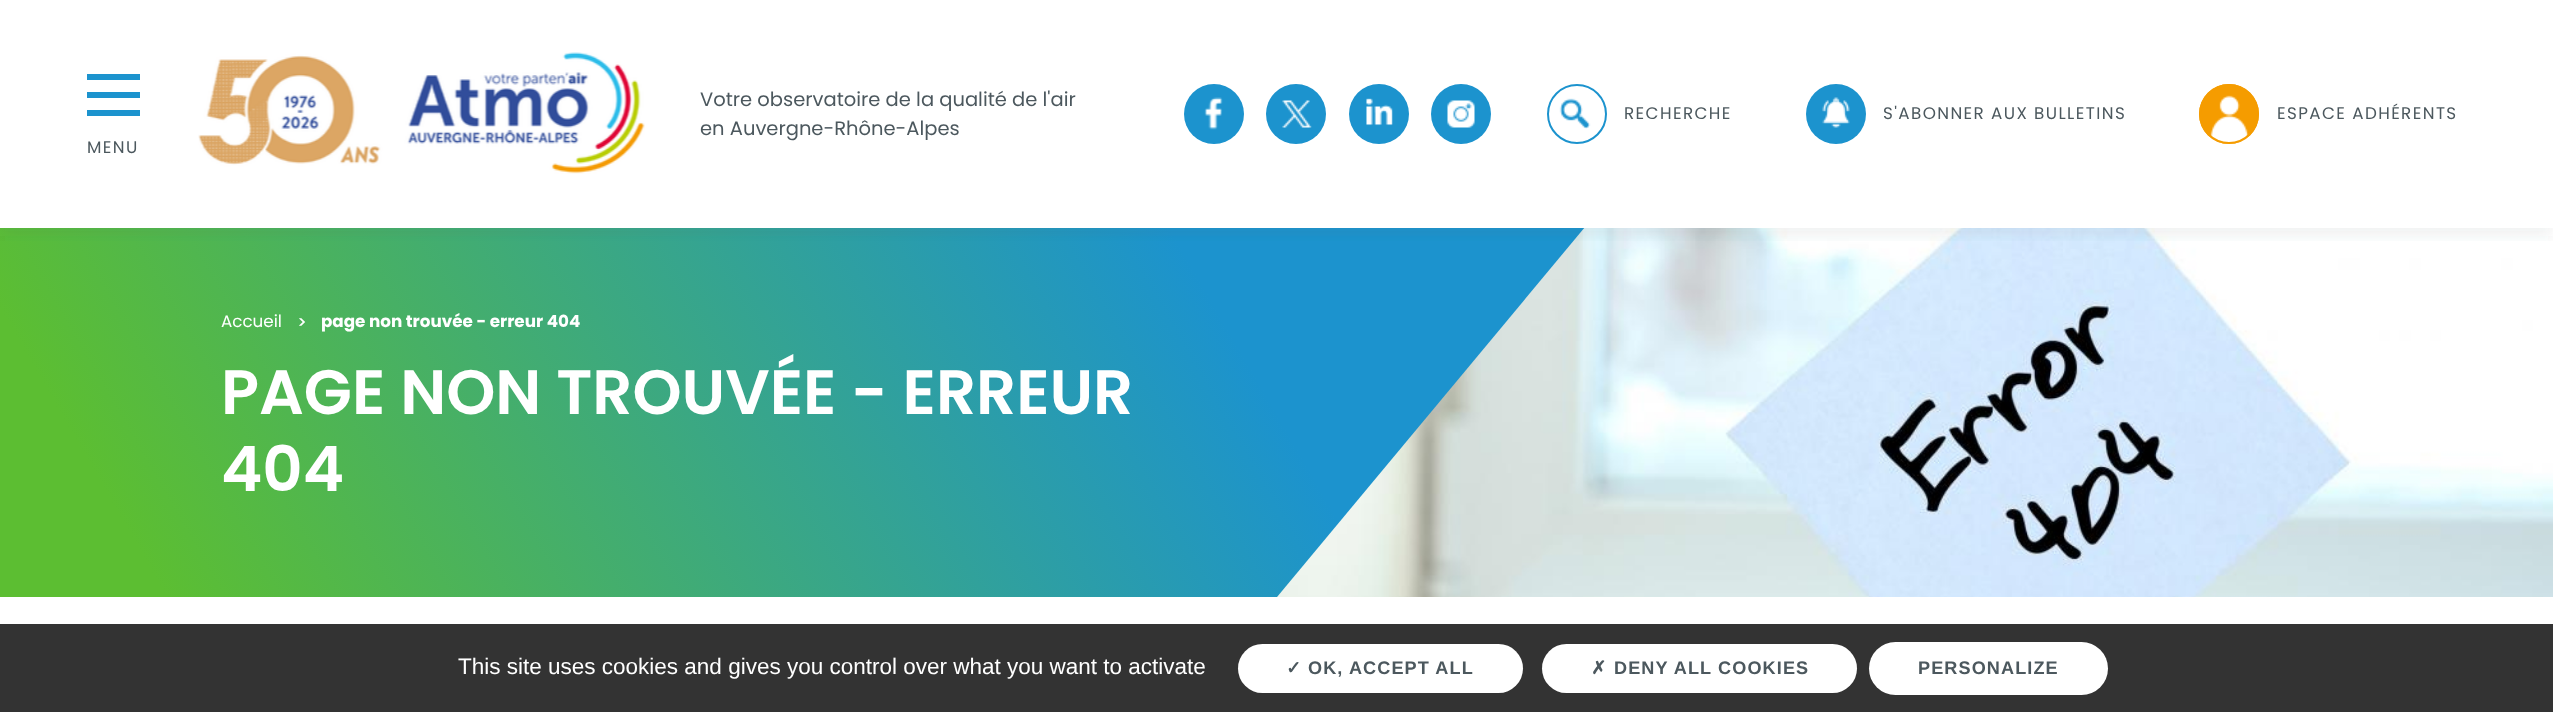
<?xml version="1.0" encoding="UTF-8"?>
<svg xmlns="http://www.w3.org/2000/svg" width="2553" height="712">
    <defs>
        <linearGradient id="g1" gradientUnits="userSpaceOnUse" x1="239" y1="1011" x2="2314" y2="-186"><stop offset="0.06" stop-color="#5CBE32"/><stop offset="0.5" stop-color="#1C93CE"/></linearGradient>
        <clipPath id="clip1"><rect x="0" y="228" width="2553" height="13"/></clipPath>
        <filter id="blur1" x="-50%" y="-200%" width="200%" height="500%"><feGaussianBlur stdDeviation="7.5"/></filter>
    </defs>
    <rect width="100%" height="100%" fill="#FFFFFF"/>
    <rect x="0" y="228" width="1585" height="369" fill="url(#g1)"/>
    <image x="1277" y="228" width="1276" height="369" href="img_09.png"/>
    <g clip-path="url(#clip1)">
        <rect x="0" y="8" width="2553" height="228" fill="#4C585E" fill-opacity="0.08" filter="url(#blur1)"/>
    </g>
    <image x="198" y="52" width="447" height="122" href="img_01.png"/>
    <text font-family="Poppins" font-size="19.5" fill="#4C585E">
        <tspan x="700" y="106">Votre observatoire de la qualité de l'air</tspan>
        <tspan x="700" y="135">en Auvergne-Rhône-Alpes</tspan>
    </text>
    <circle cx="1214" cy="114" r="30" fill="#1C93CE"/>
    <image x="1204" y="97" width="19" height="33" href="img_02.png"/>
    <circle cx="1296" cy="114" r="30" fill="#1C93CE"/>
    <image x="1282" y="100" width="30" height="28" href="img_03.png"/>
    <circle cx="1379" cy="114" r="30" fill="#1C93CE"/>
    <image x="1366" y="98" width="27" height="28" href="img_04.png"/>
    <circle cx="1461" cy="114" r="30" fill="#1C93CE"/>
    <image x="1447" y="100" width="28" height="28" href="img_05.png"/>
    <image x="1559" y="98" width="32" height="31" href="img_06.png"/>
    <circle cx="1577" cy="114" r="29" fill="none" stroke="#1C93CE" stroke-width="2"/>
    <text x="1624" y="119" font-family="Poppins" font-size="16.75" letter-spacing="1.4" fill="#4C585E">RECHERCHE</text>
    <circle cx="1836" cy="114" r="30" fill="#1C93CE"/>
    <image x="1822" y="97" width="28" height="31" href="img_07.png"/>
    <text x="1883" y="119" font-family="Poppins" font-size="16.75" letter-spacing="1.4" fill="#4C585E">S'ABONNER AUX BULLETINS</text>
    <circle cx="2229" cy="114" r="30" fill="#F59C00"/>
    <image x="2210" y="95" width="39" height="49" href="img_08.png"/>
    <circle cx="2229" cy="114" r="29" fill="none" stroke="#F59C00" stroke-width="2"/>
    <text x="2277" y="119" font-family="Poppins" font-size="16.75" letter-spacing="1.4" fill="#4C585E">ESPACE ADHÉRENTS</text>
    <rect x="87" y="92" width="53" height="6" fill="#1C93CE"/>
    <rect x="87" y="74" width="53" height="6" fill="#1C93CE"/>
    <rect x="87" y="110" width="53" height="6" fill="#1C93CE"/>
    <text x="87" y="153" font-family="Poppins" font-size="16.75" letter-spacing="1.4" fill="#4C585E">MENU</text>
    <text x="221" y="327" font-family="Poppins" font-size="16.75" fill="#FFFFFF">Accueil</text>
    <text x="297" y="328" font-family="Poppins" font-size="16.75" font-weight="500" fill="#FFFFFF">&gt;</text>
    <text x="321" y="327" font-family="Poppins" font-size="16.75" font-weight="700" fill="#FFFFFF">page non trouvée - erreur 404</text>
    <text font-family="Poppins" font-size="62.6" font-weight="600" fill="#FFFFFF">
        <tspan x="221" y="414">PAGE NON TROUVÉE - ERREUR</tspan>
        <tspan x="221" y="491">404</tspan>
    </text>
    <rect x="0" y="624" width="2553" height="88" fill="#333333"/>
    <text x="458" y="674" font-family="Liberation Sans" font-size="22.5" fill="#FFFFFF">This site uses cookies and gives you control over what you want to activate</text>
    <rect x="1238" y="644" width="285" height="49" rx="24.5" fill="#FFFFFF"/>
    <text x="1286" y="674" font-family="DejaVu Sans" font-size="18.1" font-weight="700" letter-spacing="1.1" fill="#4C585E">✓</text>
    <text x="1308" y="674" font-family="Liberation Sans" font-size="18.1" font-weight="700" letter-spacing="1.1" fill="#4C585E">OK, ACCEPT ALL</text>
    <rect x="1542" y="644" width="315" height="49" rx="24.5" fill="#FFFFFF"/>
    <text x="1591" y="674" font-family="DejaVu Sans" font-size="18.1" font-weight="700" letter-spacing="1.1" fill="#4C585E">✗</text>
    <text x="1614" y="674" font-family="Liberation Sans" font-size="18.1" font-weight="700" letter-spacing="1.1" fill="#4C585E">DENY ALL COOKIES</text>
    <rect x="1869" y="642" width="239" height="53" rx="26.5" fill="#FFFFFF"/>
    <text x="1918" y="674" font-family="Liberation Sans" font-size="18.1" font-weight="700" letter-spacing="1.1" fill="#4C585E">PERSONALIZE</text>
</svg>
